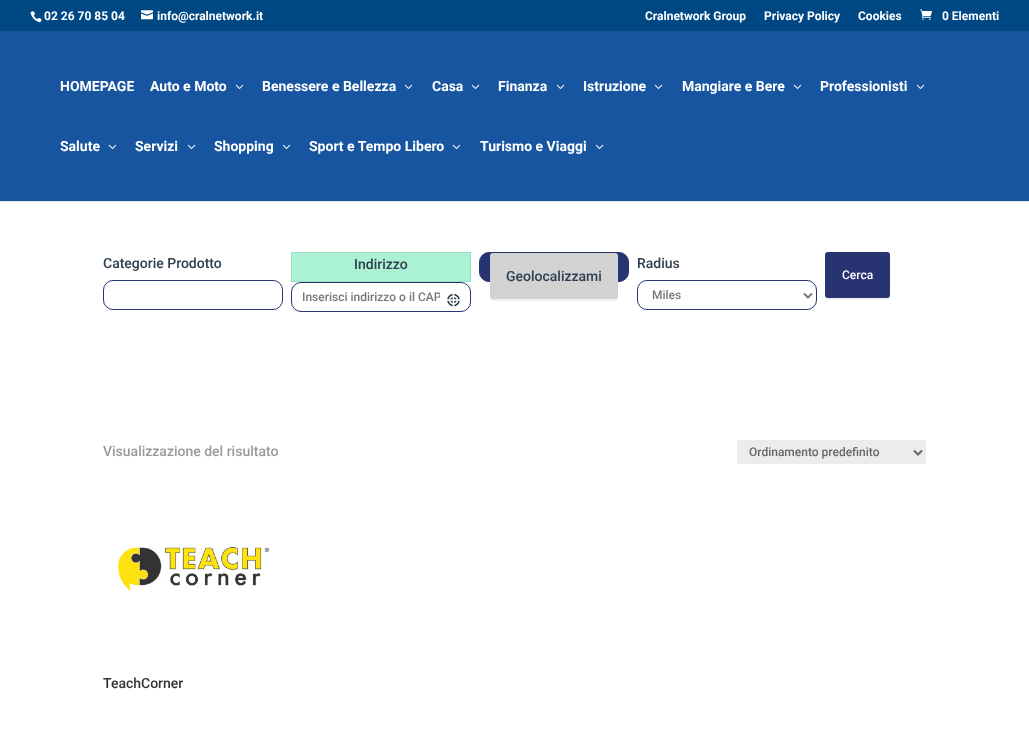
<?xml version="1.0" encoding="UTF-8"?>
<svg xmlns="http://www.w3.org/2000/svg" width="1029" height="742">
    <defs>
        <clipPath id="clip1"><rect x="302" y="290" width="138" height="14"/></clipPath>
        <filter id="blur1" x="-50%" y="-200%" width="200%" height="500%"><feGaussianBlur stdDeviation="0.5"/></filter>
    </defs>
    <rect width="100%" height="100%" fill="#FFFFFF"/>
    <rect x="0" y="0" width="1029" height="31" fill="#004884"/>
    <image x="30" y="11" width="12" height="12" href="img_01.png"/>
    <text x="44" y="20" font-family="Roboto" font-size="12" font-weight="700" fill="#FFFFFF">02 26 70 85 04</text>
    <image x="141" y="10" width="12" height="10" href="img_02.png"/>
    <text x="157" y="20" font-family="Roboto" font-size="12" font-weight="700" fill="#FFFFFF">info@cralnetwork.it</text>
    <text x="645" y="20" font-family="Roboto" font-size="12" font-weight="700" fill="#FFFFFF">Cralnetwork Group</text>
    <text x="764" y="20" font-family="Roboto" font-size="12" font-weight="700" fill="#FFFFFF">Privacy Policy</text>
    <text x="858" y="20" font-family="Roboto" font-size="12" font-weight="700" fill="#FFFFFF">Cookies</text>
    <image x="920" y="9" width="12" height="11" href="img_03.png"/>
    <text x="942" y="20" font-family="Roboto" font-size="12" font-weight="700" fill="#FFFFFF">0 Elementi</text>
    <rect x="0" y="201" width="1029" height="1" fill="#E6E6E6"/>
    <rect x="0" y="31" width="1029" height="170" fill="#1755A1"/>
    <text x="60" y="91" font-family="Roboto" font-size="14" font-weight="700" fill="#FFFFFF">HOMEPAGE</text>
    <text x="150" y="91" font-family="Roboto" font-size="14" font-weight="700" fill="#FFFFFF">Auto e Moto</text>
    <image x="235" y="84" width="9" height="5" href="img_04.png"/>
    <text x="262" y="91" font-family="Roboto" font-size="14" font-weight="700" fill="#FFFFFF">Benessere e Bellezza</text>
    <image x="404" y="84" width="9" height="5" href="img_04.png"/>
    <text x="432" y="91" font-family="Roboto" font-size="14" font-weight="700" fill="#FFFFFF">Casa</text>
    <image x="471" y="84" width="9" height="5" href="img_04.png"/>
    <text x="498" y="91" font-family="Roboto" font-size="14" font-weight="700" fill="#FFFFFF">Finanza</text>
    <image x="556" y="84" width="9" height="5" href="img_04.png"/>
    <text x="583" y="91" font-family="Roboto" font-size="14" font-weight="700" fill="#FFFFFF">Istruzione</text>
    <image x="654" y="84" width="9" height="5" href="img_04.png"/>
    <text x="682" y="91" font-family="Roboto" font-size="14" font-weight="700" fill="#FFFFFF">Mangiare e Bere</text>
    <image x="793" y="84" width="9" height="5" href="img_04.png"/>
    <text x="820" y="91" font-family="Roboto" font-size="14" font-weight="700" fill="#FFFFFF">Professionisti</text>
    <image x="916" y="84" width="9" height="5" href="img_04.png"/>
    <text x="60" y="151" font-family="Roboto" font-size="14" font-weight="700" fill="#FFFFFF">Salute</text>
    <image x="108" y="144" width="9" height="5" href="img_04.png"/>
    <text x="135" y="151" font-family="Roboto" font-size="14" font-weight="700" fill="#FFFFFF">Servizi</text>
    <image x="187" y="144" width="9" height="5" href="img_04.png"/>
    <text x="214" y="151" font-family="Roboto" font-size="14" font-weight="700" fill="#FFFFFF">Shopping</text>
    <image x="282" y="144" width="9" height="5" href="img_04.png"/>
    <text x="309" y="151" font-family="Roboto" font-size="14" font-weight="700" fill="#FFFFFF">Sport e Tempo Libero</text>
    <image x="452" y="144" width="9" height="5" href="img_04.png"/>
    <text x="480" y="151" font-family="Roboto" font-size="14" font-weight="700" fill="#FFFFFF">Turismo e Viaggi</text>
    <image x="595" y="144" width="9" height="5" href="img_04.png"/>
    <text x="103" y="268" font-family="Roboto" font-size="14" font-weight="500" fill="#2C3E50">Categorie Prodotto</text>
    <rect x="103.5" y="280.5" width="179" height="29" rx="9.5" fill="none" stroke="#283371"/>
    <rect x="291.5" y="252.5" width="179" height="29" fill="#ABF1D4" stroke="#9BDFC3"/>
    <text x="354" y="269" font-family="Roboto" font-size="14" font-weight="500" fill="#2C3E50">Indirizzo</text>
    <rect x="291.5" y="282.5" width="179" height="29" rx="9.5" fill="none" stroke="#283371"/>
    <g clip-path="url(#clip1)">
        <text x="302" y="301" font-family="Roboto" font-size="12" font-weight="500" fill="#777777">Inserisci indirizzo o il CAP</text>
    </g>
    <image x="447" y="293" width="13" height="14" href="img_05.png"/>
    <rect x="479.5" y="252.5" width="149" height="29" rx="9.5" fill="#283371" stroke="#283371"/>
    <rect x="490" y="255" width="128" height="46" rx="3" fill="#1C1F3F" fill-opacity="0.06" filter="url(#blur1)"/>
    <rect x="490" y="253" width="128" height="46" rx="3" fill="#D2D2D2"/>
    <text x="506" y="281" font-family="Roboto" font-size="14" font-weight="500" fill="#2C3E50">Geolocalizzami</text>
    <text x="637" y="268" font-family="Roboto" font-size="14" font-weight="500" fill="#2C3E50">Radius</text>
    <rect x="637.5" y="280.5" width="179" height="29" rx="9.5" fill="none" stroke="#283371"/>
    <path d="M 804 293.5 L 808 297.5 L 812 293.5" fill="none" stroke="#777777" stroke-width="2"/>
    <text x="652" y="299" font-family="Roboto" font-size="12" font-weight="500" fill="#777777">Miles</text>
    <rect x="825" y="254" width="65" height="46" rx="3" fill="#1C1F3F" fill-opacity="0.06" filter="url(#blur1)"/>
    <rect x="825" y="252" width="65" height="46" rx="3" fill="#283371"/>
    <text x="842" y="279" font-family="Roboto" font-size="12" font-weight="500" fill="#FFFFFF">Cerca</text>
    <text x="103" y="456" font-family="Roboto" font-size="14" font-weight="500" fill="#999999">Visualizzazione del risultato</text>
    <rect x="737" y="440" width="189" height="24" rx="3" fill="#ECECEC"/>
    <path d="M 914 450.5 L 918 454.5 L 922 450.5" fill="none" stroke="#666666" stroke-width="2"/>
    <text x="749" y="456" font-family="Roboto" font-size="12" font-weight="500" fill="#666666">Ordinamento predefinito</text>
    <image x="118" y="547" width="151" height="44" href="img_06.png"/>
    <text x="103" y="688" font-family="Roboto" font-size="14" font-weight="500" fill="#333333">TeachCorner</text>
</svg>
